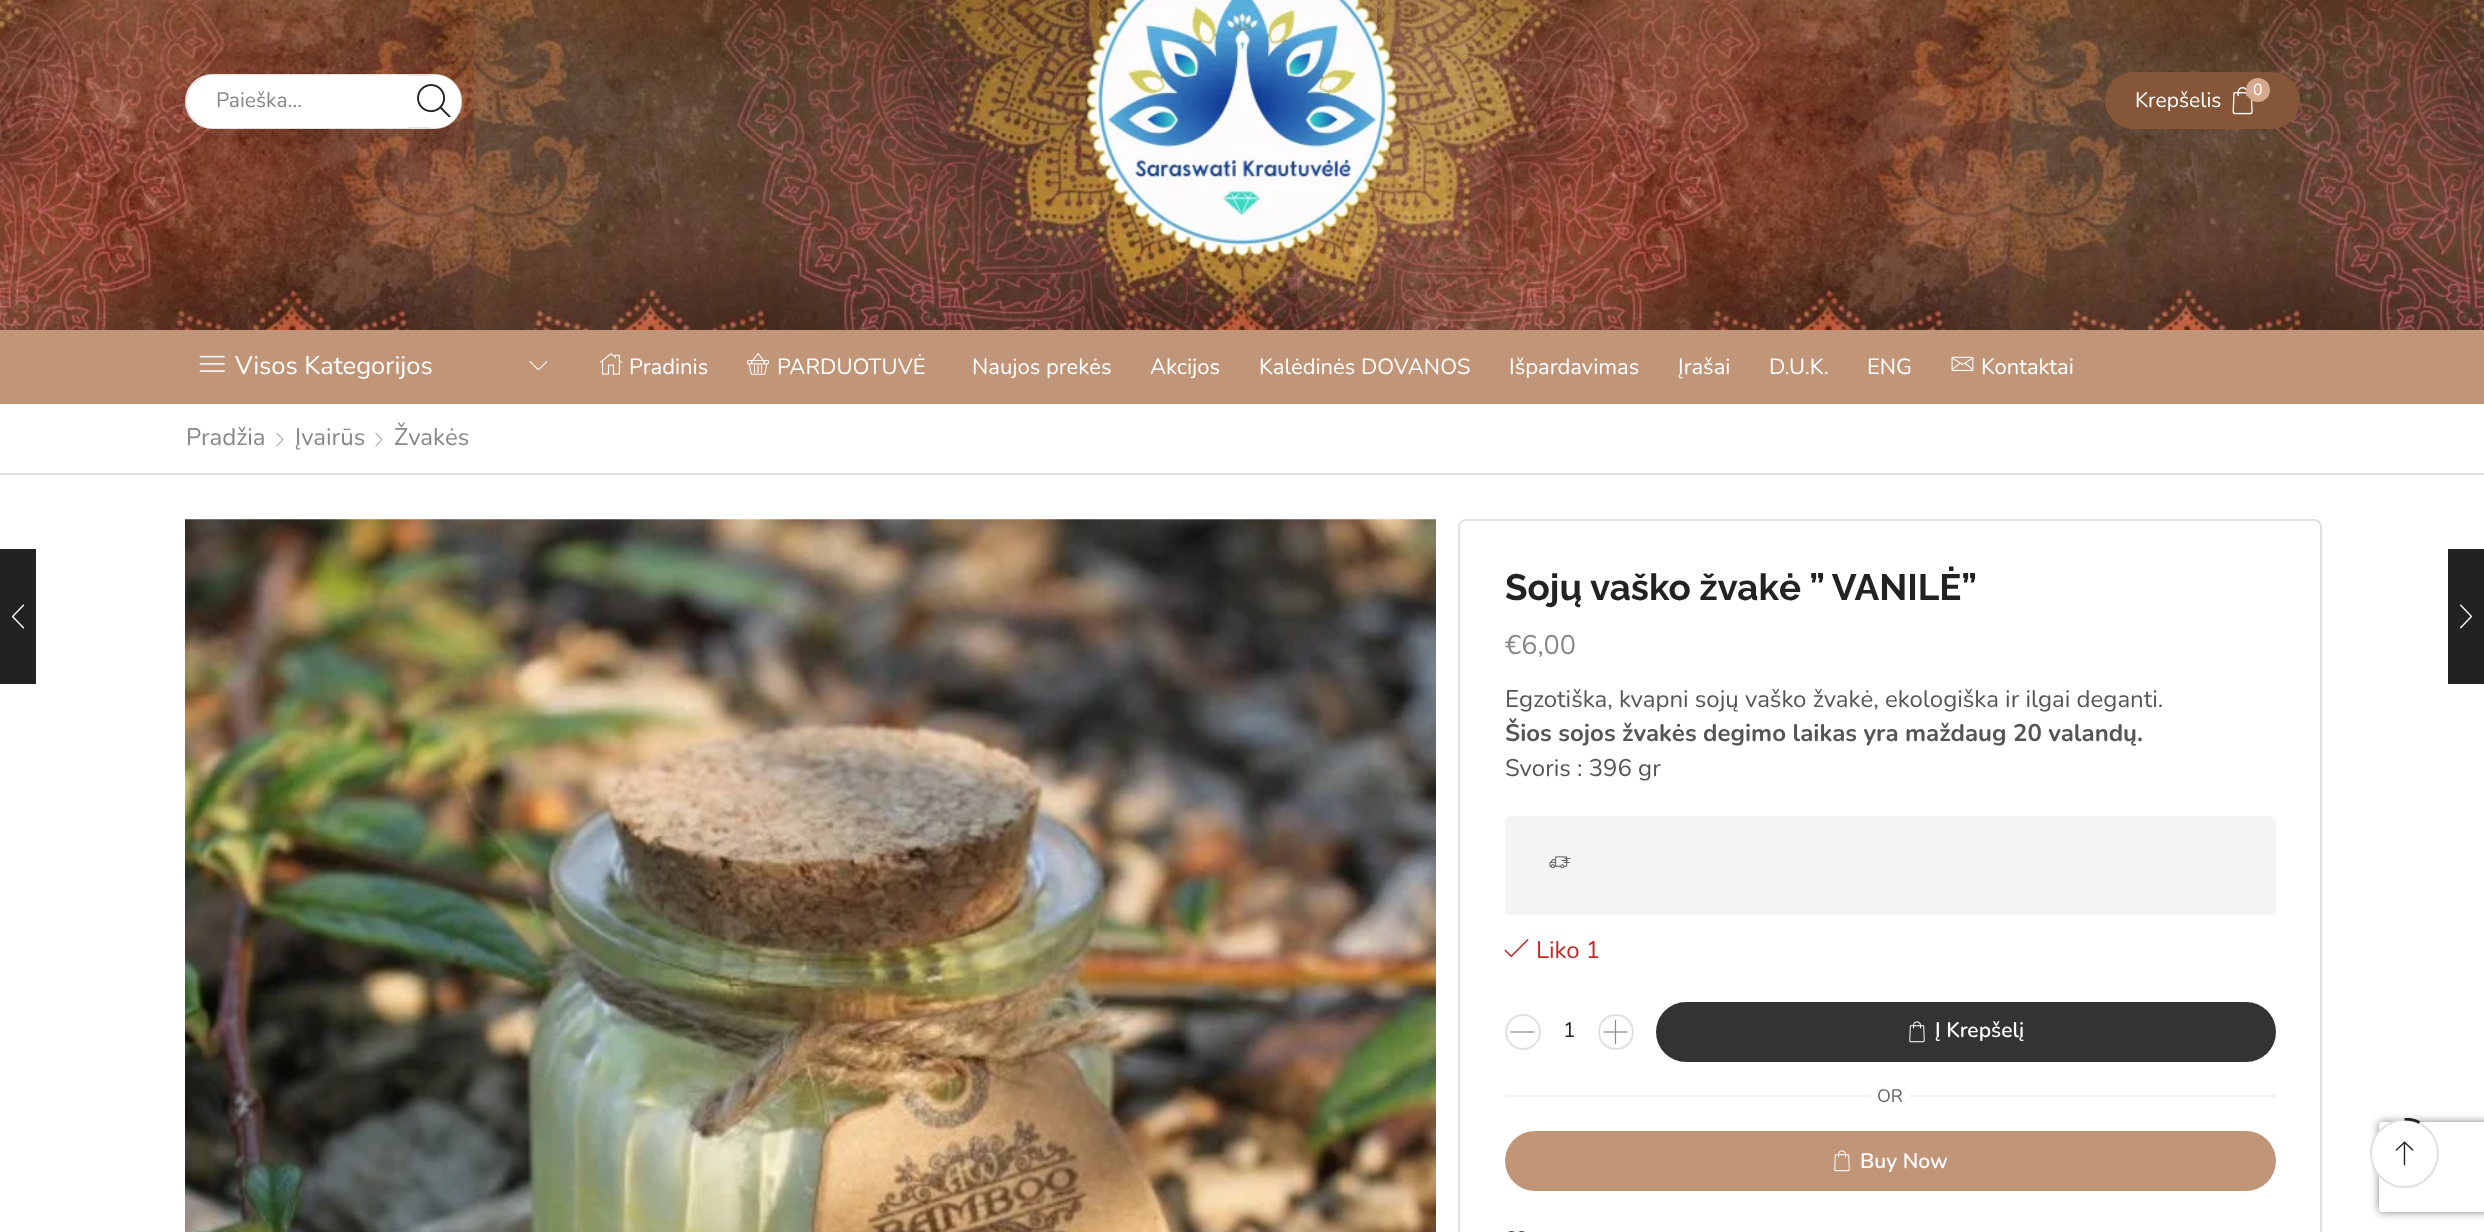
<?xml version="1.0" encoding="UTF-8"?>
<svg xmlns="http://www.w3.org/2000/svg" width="2484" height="1232">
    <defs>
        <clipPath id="clip1"><rect x="186" y="75" width="275" height="53" rx="26.5"/></clipPath>
        <clipPath id="clip2"><path d="M 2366 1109 H 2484 V 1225 H 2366 Z M 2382 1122 H 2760 C 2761.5 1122 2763 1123.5 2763 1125 V 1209 C 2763 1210.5 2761.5 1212 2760 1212 H 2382 C 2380.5 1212 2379 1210.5 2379 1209 V 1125 C 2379 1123.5 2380.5 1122 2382 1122 Z" clip-rule="evenodd"/></clipPath>
        <filter id="blur1" x="-50%" y="-200%" width="200%" height="500%"><feGaussianBlur stdDeviation="4"/></filter>
        <clipPath id="clip3"><rect x="2369" y="1118" width="72" height="72"/></clipPath>
    </defs>
    <rect width="100%" height="100%" fill="#FFFFFF"/>
    <image x="0" y="0" width="2484" height="330" href="img_01.png"/>
    <rect x="186" y="75" width="275" height="53" rx="26.5" fill="#FFFFFF" stroke="#E1E1E1" stroke-width="2"/>
    <g clip-path="url(#clip1)">
        <rect x="201" y="75" width="207" height="53" fill="#FFFFFF"/>
    </g>
    <text x="216" y="107" font-family="Nunito" font-size="21" fill="#888888">Paieška...</text>
    <circle cx="434.5" cy="101.5" r="26.5" fill="#FFFFFF"/>
    <image x="417" y="84" width="34" height="33" href="img_02.png"/>
    <image x="1086" y="0" width="312" height="256" href="img_03.png"/>
    <rect x="2105" y="72" width="195" height="57" rx="28.5" fill="#855637"/>
    <image x="2232" y="87" width="21" height="28" href="img_04.png"/>
    <circle cx="2258" cy="90" r="12" fill="#D4A98C"/>
    <text x="2253" y="95" font-family="Nunito" font-size="16" fill="#FFFFFF">0</text>
    <text x="2135" y="107" font-family="Nunito" font-size="21" fill="#FFFFFF">Krepšelis</text>
    <rect x="0" y="330" width="2484" height="74" fill="#C09578"/>
    <image x="199" y="355" width="26" height="17" href="img_05.png"/>
    <text x="235" y="374" font-family="Nunito" font-size="25.5" fill="#FFFFFF">Visos Kategorijos</text>
    <image x="529" y="361" width="19" height="10" href="img_06.png"/>
    <image x="600" y="353" width="22" height="22" href="img_07.png"/>
    <text x="629" y="374" font-family="Nunito" font-size="22" fill="#FFFFFF">Pradinis</text>
    <image x="747" y="353" width="22" height="22" href="img_08.png"/>
    <text x="777" y="374" font-family="Nunito" font-size="22" fill="#FFFFFF">PARDUOTUVĖ</text>
    <text x="972" y="374" font-family="Nunito" font-size="22" fill="#FFFFFF">Naujos prekės</text>
    <text x="1150" y="374" font-family="Nunito" font-size="22" fill="#FFFFFF">Akcijos</text>
    <text x="1259" y="374" font-family="Nunito" font-size="22" fill="#FFFFFF">Kalėdinės DOVANOS</text>
    <text x="1509" y="374" font-family="Nunito" font-size="22" fill="#FFFFFF">Išpardavimas</text>
    <text x="1678" y="374" font-family="Nunito" font-size="22" fill="#FFFFFF">Įrašai</text>
    <text x="1769" y="374" font-family="Nunito" font-size="22" fill="#FFFFFF">D.U.K.</text>
    <text x="1867" y="374" font-family="Nunito" font-size="22" fill="#FFFFFF">ENG</text>
    <image x="1951" y="356" width="23" height="15" href="img_09.png"/>
    <text x="1981" y="374" font-family="Nunito" font-size="22" fill="#FFFFFF">Kontaktai</text>
    <rect x="0" y="473" width="2484" height="2" fill="#E1E1E1"/>
    <text x="186" y="445" font-family="Nunito" font-size="24" fill="#888888">Pradžia</text>
    <image x="276" y="432" width="8" height="15" href="img_10.png"/>
    <text x="295" y="445" font-family="Nunito" font-size="24" fill="#888888">Įvairūs</text>
    <image x="375" y="432" width="8" height="15" href="img_10.png"/>
    <text x="394" y="445" font-family="Nunito" font-size="24" fill="#888888">Žvakės</text>
    <rect x="0" y="549" width="36" height="135" fill="#222222"/>
    <image x="11" y="604" width="14" height="25" href="img_11.png"/>
    <rect x="2448" y="549" width="36" height="135" fill="#222222"/>
    <image x="2460" y="604" width="12" height="25" href="img_12.png"/>
    <image x="185" y="519" width="1251" height="713" href="img_13.png"/>
    <rect x="1459" y="520" width="862" height="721" rx="7" fill="none" stroke="#E1E1E1" stroke-width="2"/>
    <text x="1505" y="600" font-family="Raleway" font-size="36.75" font-weight="700" fill="#222222">Sojų vaško žvakė ” VANILĖ”</text>
    <text x="1505" y="654" font-family="Nunito" font-size="27" fill="#888888">€6,00</text>
    <text x="1505" y="707" font-family="Nunito" font-size="24" fill="#555555">Egzotiška, kvapni sojų vaško žvakė, ekologiška ir ilgai deganti.</text>
    <text x="1505" y="741" font-family="Nunito" font-size="24" font-weight="700" fill="#555555">Šios sojos žvakės degimo laikas yra maždaug 20 valandų.</text>
    <text x="1505" y="776" font-family="Nunito" font-size="24" fill="#555555">Svoris : 396 gr</text>
    <rect x="1505" y="816" width="771" height="99" rx="6" fill="#F4F4F4"/>
    <image x="1549" y="856" width="22" height="13" href="img_14.png"/>
    <image x="1504" y="939" width="25" height="18" href="img_15.png"/>
    <text x="1536" y="958" font-family="Nunito" font-size="24" fill="#C62828">Liko 1</text>
    <circle cx="1523" cy="1032" r="17" fill="none" stroke="#E1E1E1" stroke-width="2"/>
    <image x="1510" y="1031" width="25" height="2" href="img_16.png"/>
    <text x="1563" y="1037" font-family="Nunito" font-size="21" fill="#222222">1</text>
    <circle cx="1616" cy="1032" r="17" fill="none" stroke="#E1E1E1" stroke-width="2"/>
    <image x="1603" y="1020" width="25" height="24" href="img_17.png"/>
    <rect x="1656" y="1002" width="620" height="60" rx="30" fill="#333333"/>
    <image x="1909" y="1021" width="16" height="22" href="img_18.png"/>
    <text x="1935" y="1037" font-family="Nunito" font-size="21" font-weight="600" fill="#FFFFFF">Į Krepšelį</text>
    <rect x="1505" y="1095" width="366" height="2" fill="#F0F0F0"/>
    <text x="1877" y="1102" font-family="Nunito" font-size="18" fill="#646464">OR</text>
    <rect x="1910" y="1095" width="366" height="2" fill="#F0F0F0"/>
    <rect x="1505" y="1131" width="771" height="60" rx="30" fill="#C09578"/>
    <image x="1834" y="1150" width="16" height="22" href="img_19.png"/>
    <text x="1860" y="1168" font-family="Nunito" font-size="21" font-weight="600" fill="#FFFFFF">Buy Now</text>
    <image x="1508" y="1231" width="17" height="1" href="img_20.png"/>
    <g clip-path="url(#clip2)">
        <rect x="2379" y="1122" width="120" height="90" rx="3" fill="#808080" filter="url(#blur1)"/>
    </g>
    <circle cx="2404.5" cy="1153.5" r="33.5" fill="#FFFFFF" stroke="#E1E1E1" stroke-width="2"/>
    <g clip-path="url(#clip3)">
        <path d="M 2404.5 1119 C 2410 1119 2415 1120 2419.5 1122.5" fill="none" stroke="#222222" stroke-width="2.8"/>
    </g>
    <image x="2395" y="1141" width="19" height="25" href="img_21.png"/>
</svg>
